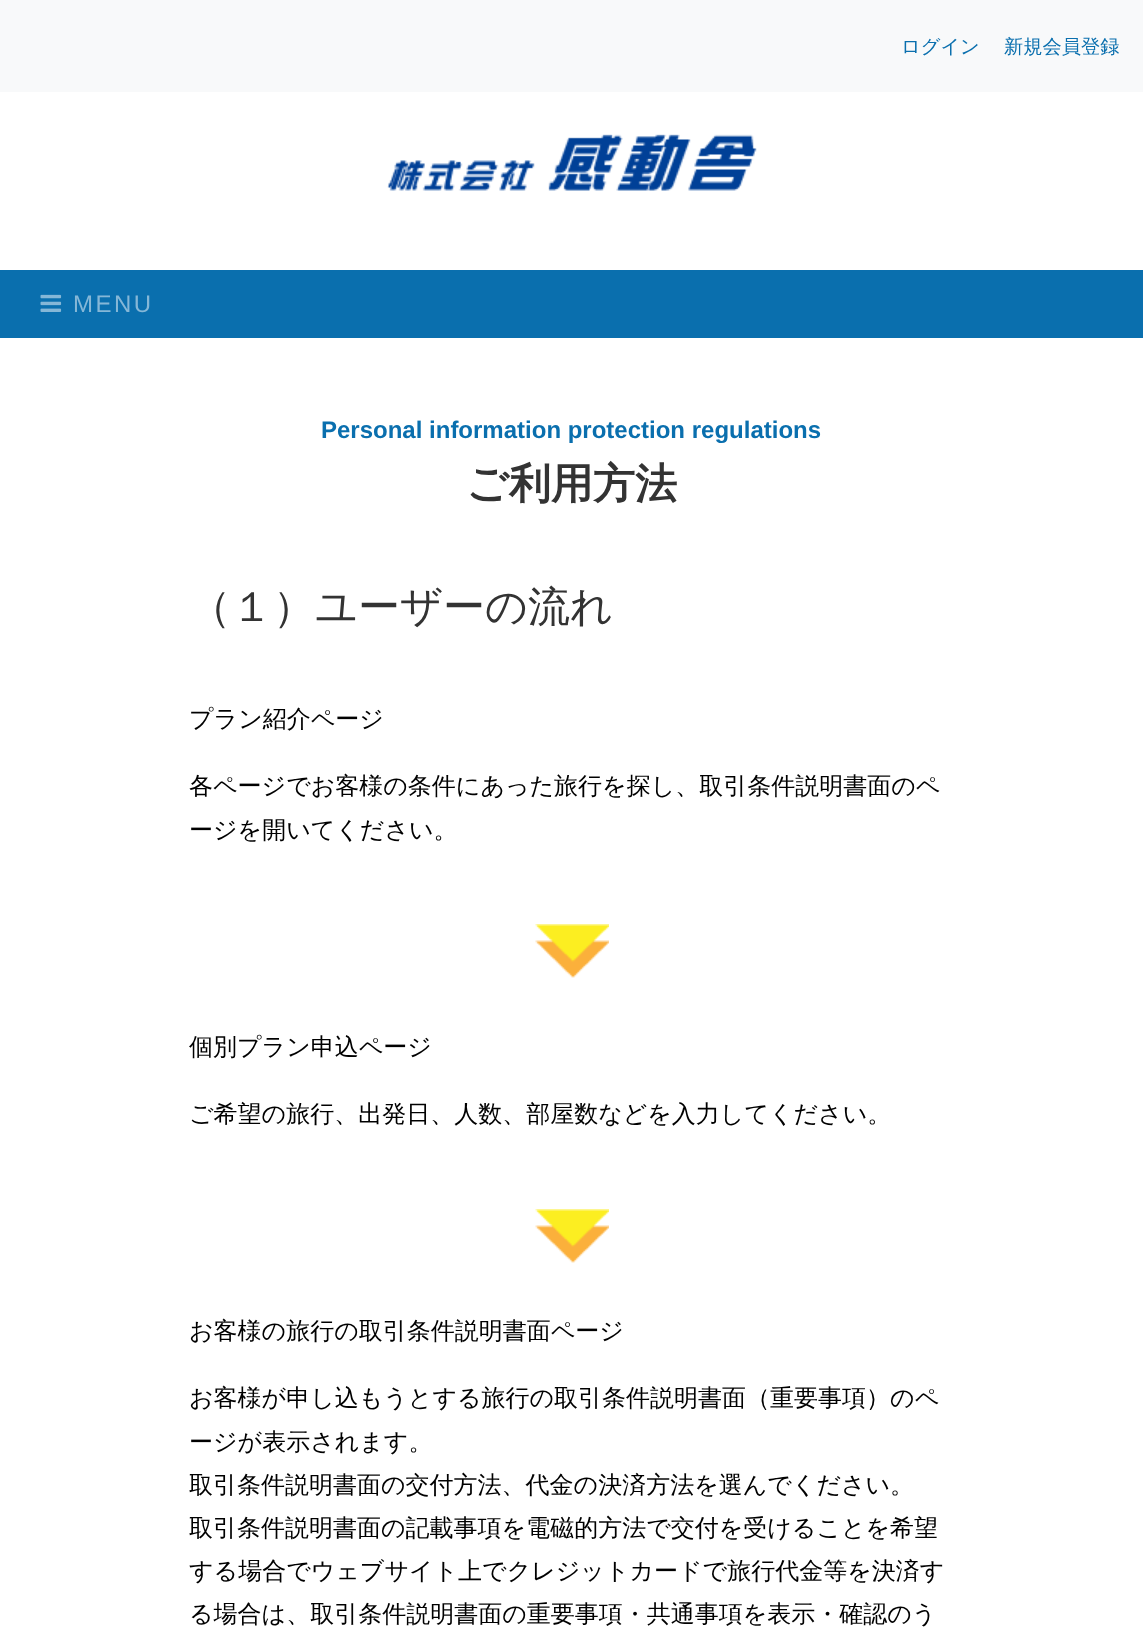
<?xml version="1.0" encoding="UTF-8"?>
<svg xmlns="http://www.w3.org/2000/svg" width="1143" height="1633">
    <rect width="100%" height="100%" fill="#FFFFFF"/>
    <rect x="0" y="0" width="1143" height="92" fill="#F8F9FA"/>
    <text x="901" y="53" font-family="WenQuanYi Zen Hei" font-size="19.25" font-weight="500" fill="#0A6FAE">ログイン</text>
    <text x="1004" y="53" font-family="WenQuanYi Zen Hei" font-size="19.25" font-weight="500" fill="#0A6FAE">新規会員登録</text>
    <image x="387" y="134" width="370" height="57" href="img_01.png"/>
    <rect x="0" y="270" width="1143" height="68" fill="#0A6FAE"/>
    <image x="40" y="294" width="22" height="18" href="img_02.png"/>
    <text x="73" y="312" font-family="Liberation Sans" font-size="24" letter-spacing="2.5" fill="#85B7D7">MENU</text>
    <text x="321" y="438" font-family="Liberation Sans" font-size="24" font-weight="700" fill="#0A6FAE">Personal information protection regulations</text>
    <text x="466" y="498" font-family="WenQuanYi Zen Hei" font-size="42" font-weight="700" fill="#333333">ご利用方法</text>
    <text x="189" y="621" font-family="WenQuanYi Zen Hei" font-size="42" font-weight="500" fill="#333333">（１）ユーザーの流れ</text>
    <text x="189" y="727" font-family="WenQuanYi Zen Hei" font-size="24" font-weight="500" fill="#000000">プラン紹介ページ</text>
    <text font-family="WenQuanYi Zen Hei" font-size="24" font-weight="500" fill="#000000">
        <tspan x="189" y="794">各ページでお客様の条件にあった旅行を探し、取引条件説明書面のペ</tspan>
        <tspan x="189" y="838">ージを開いてください。</tspan>
    </text>
    <image x="535" y="924" width="74" height="54" href="img_03.png"/>
    <text x="189" y="1055" font-family="WenQuanYi Zen Hei" font-size="24" font-weight="500" fill="#000000">個別プラン申込ページ</text>
    <text x="189" y="1122" font-family="WenQuanYi Zen Hei" font-size="24" font-weight="500" fill="#000000">ご希望の旅行、出発日、人数、部屋数などを入力してください。</text>
    <image x="535" y="1209" width="74" height="54" href="img_03.png"/>
    <text x="189" y="1339" font-family="WenQuanYi Zen Hei" font-size="24" font-weight="500" fill="#000000">お客様の旅行の取引条件説明書面ページ</text>
    <text font-family="WenQuanYi Zen Hei" font-size="24" font-weight="500" fill="#000000">
        <tspan x="189" y="1406">お客様が申し込もうとする旅行の取引条件説明書面（重要事項）のペ</tspan>
        <tspan x="189" y="1450">ージが表示されます。</tspan>
        <tspan x="189" y="1493">取引条件説明書面の交付方法、代金の決済方法を選んでください。</tspan>
        <tspan x="189" y="1536">取引条件説明書面の記載事項を電磁的方法で交付を受けることを希望</tspan>
        <tspan x="189" y="1579">する場合でウェブサイト上でクレジットカードで旅行代金等を決済す</tspan>
        <tspan x="189" y="1622">る場合は、取引条件説明書面の重要事項・共通事項を表示・確認のう</tspan>
    </text>
</svg>
